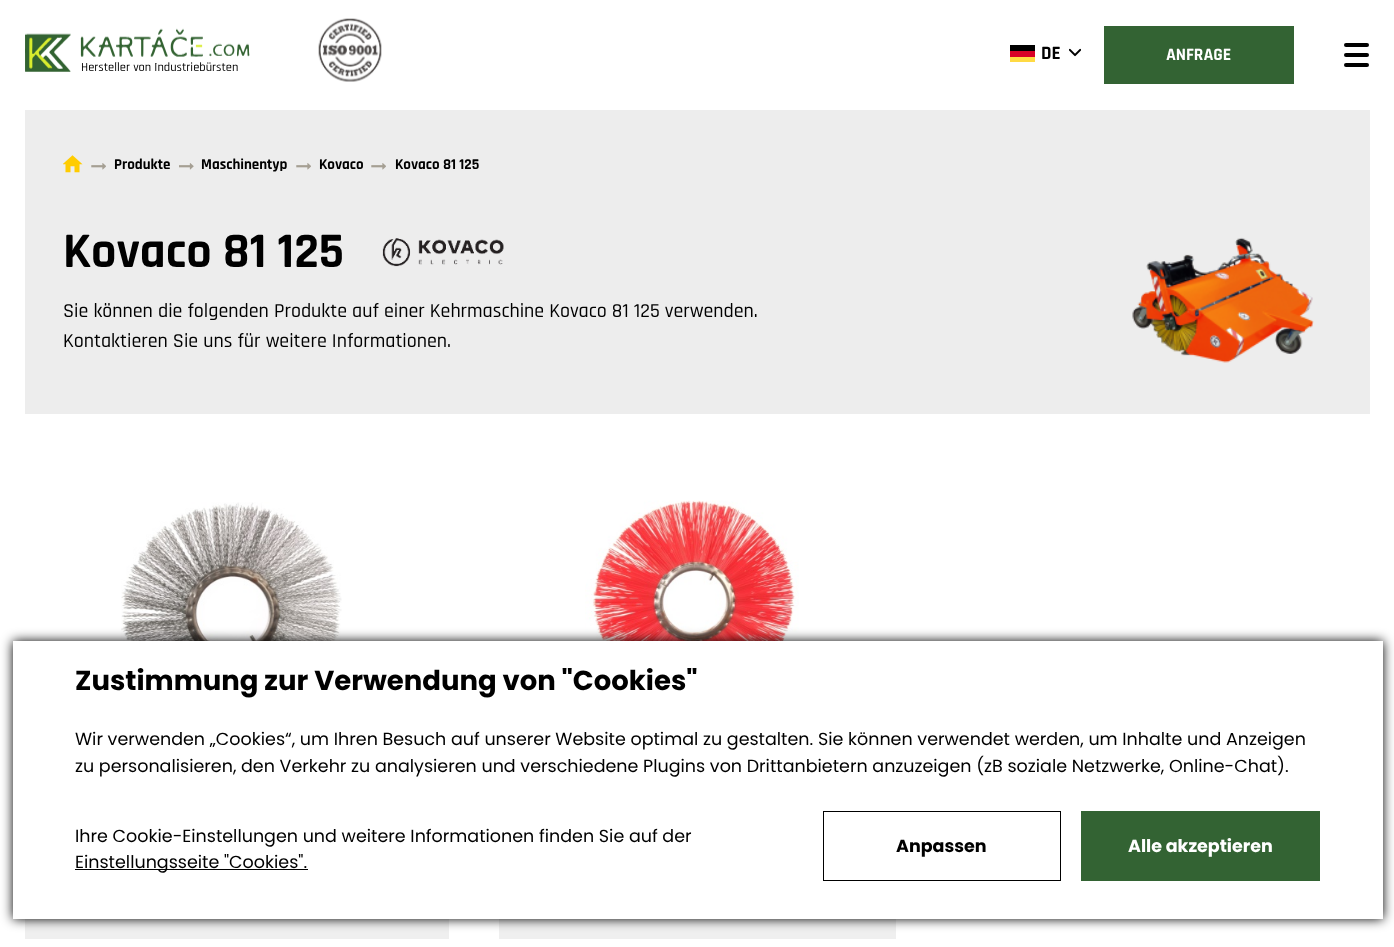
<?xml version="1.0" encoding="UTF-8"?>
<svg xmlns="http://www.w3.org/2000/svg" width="1394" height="947">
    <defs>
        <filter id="blur1" x="-50%" y="-200%" width="200%" height="500%"><feGaussianBlur stdDeviation="6"/></filter>
    </defs>
    <rect width="100%" height="100%" fill="#FFFFFF"/>
    <rect x="1010" y="51" width="25" height="6" fill="#D80027"/>
    <rect x="1010" y="45" width="25" height="6" fill="#000000"/>
    <rect x="1010" y="57" width="25" height="5" fill="#FFDA44"/>
    <text x="1041" y="59" font-family="Rajdhani" font-size="19" font-weight="700" fill="#000000">DE</text>
    <image x="1069" y="48" width="12" height="9" href="img_01.png"/>
    <rect x="1104" y="26" width="190" height="58" fill="#336333"/>
    <text x="1166" y="60" font-family="Rajdhani" font-size="17.5" font-weight="700" fill="#FFFFFF">ANFRAGE</text>
    <rect x="1344" y="43" width="25" height="4" rx="2" fill="#000000"/>
    <rect x="1344" y="53" width="25" height="4" rx="2" fill="#000000"/>
    <rect x="1344" y="63" width="25" height="4" rx="2" fill="#000000"/>
    <image x="25" y="28" width="225" height="44" href="img_02.png"/>
    <text x="81" y="71" font-family="Rajdhani" font-size="12.5" font-weight="500" fill="#000000">Hersteller von Industriebürsten</text>
    <image x="318" y="18" width="64" height="64" href="img_03.png"/>
    <rect x="25" y="110" width="1345" height="304" fill="#EDEDED"/>
    <image x="63" y="155" width="20" height="18" href="img_04.png"/>
    <image x="91" y="163" width="15" height="7" href="img_05.png"/>
    <text x="114" y="169" font-family="Rajdhani" font-size="15" font-weight="700" fill="#000000">Produkte</text>
    <image x="179" y="163" width="15" height="7" href="img_06.png"/>
    <text x="201" y="169" font-family="Rajdhani" font-size="15" font-weight="700" fill="#000000">Maschinentyp</text>
    <image x="296" y="163" width="15" height="7" href="img_05.png"/>
    <text x="319" y="169" font-family="Rajdhani" font-size="15" font-weight="700" fill="#000000">Kovaco</text>
    <image x="371" y="163" width="15" height="7" href="img_05.png"/>
    <text x="395" y="169" font-family="Rajdhani" font-size="15" font-weight="700" fill="#000000">Kovaco 81 125</text>
    <text x="63" y="267" font-family="Rajdhani" font-size="50" font-weight="700" fill="#000000">Kovaco 81 125</text>
    <image x="382" y="238" width="122" height="29" href="img_07.png"/>
    <text font-family="Rajdhani" font-size="20" font-weight="500" fill="#000000">
        <tspan x="63" y="317">Sie können die folgenden Produkte auf einer Kehrmaschine Kovaco 81 125 verwenden.</tspan>
        <tspan x="63" y="347">Kontaktieren Sie uns für weitere Informationen.</tspan>
    </text>
    <image x="1132" y="237" width="182" height="126" href="img_08.png"/>
    <image x="121" y="502" width="221" height="139" href="img_09.png"/>
    <rect x="25" y="919" width="424" height="20" fill="#EFEFEF"/>
    <image x="585" y="500" width="214" height="141" href="img_10.png"/>
    <rect x="499" y="919" width="397" height="20" fill="#EFEFEF"/>
    <rect x="13" y="641" width="1370" height="278" fill="#000000" filter="url(#blur1)"/>
    <rect x="13" y="641" width="1370" height="278" fill="#FFFFFF"/>
    <text x="75" y="690" font-family="Poppins" font-size="27.5" font-weight="700" fill="#000000">Zustimmung zur Verwendung von "Cookies"</text>
    <text font-family="Poppins" font-size="17.5" fill="#000000">
        <tspan x="75" y="745">Wir verwenden „Cookies“, um Ihren Besuch auf unserer Website optimal zu gestalten. Sie können verwendet werden, um Inhalte und Anzeigen</tspan>
        <tspan x="75" y="772">zu personalisieren, den Verkehr zu analysieren und verschiedene Plugins von Drittanbietern anzuzeigen (zB soziale Netzwerke, Online-Chat).</tspan>
    </text>
    <text x="75" y="842" font-family="Poppins" font-size="17.5" fill="#000000">Ihre Cookie-Einstellungen und weitere Informationen finden Sie auf der</text>
    <rect x="75" y="869" width="233" height="1" fill="#000000"/>
    <text x="75" y="868" font-family="Poppins" font-size="17.5" fill="#000000">Einstellungsseite "Cookies".</text>
    <rect x="823.5" y="811.5" width="237" height="69" fill="none" stroke="#000000"/>
    <text x="896" y="852" font-family="Poppins" font-size="17.5" font-weight="700" fill="#000000">Anpassen</text>
    <rect x="1081" y="811" width="239" height="70" fill="#336333"/>
    <text x="1128" y="852" font-family="Poppins" font-size="17.5" font-weight="700" fill="#FFFFFF">Alle akzeptieren</text>
</svg>
